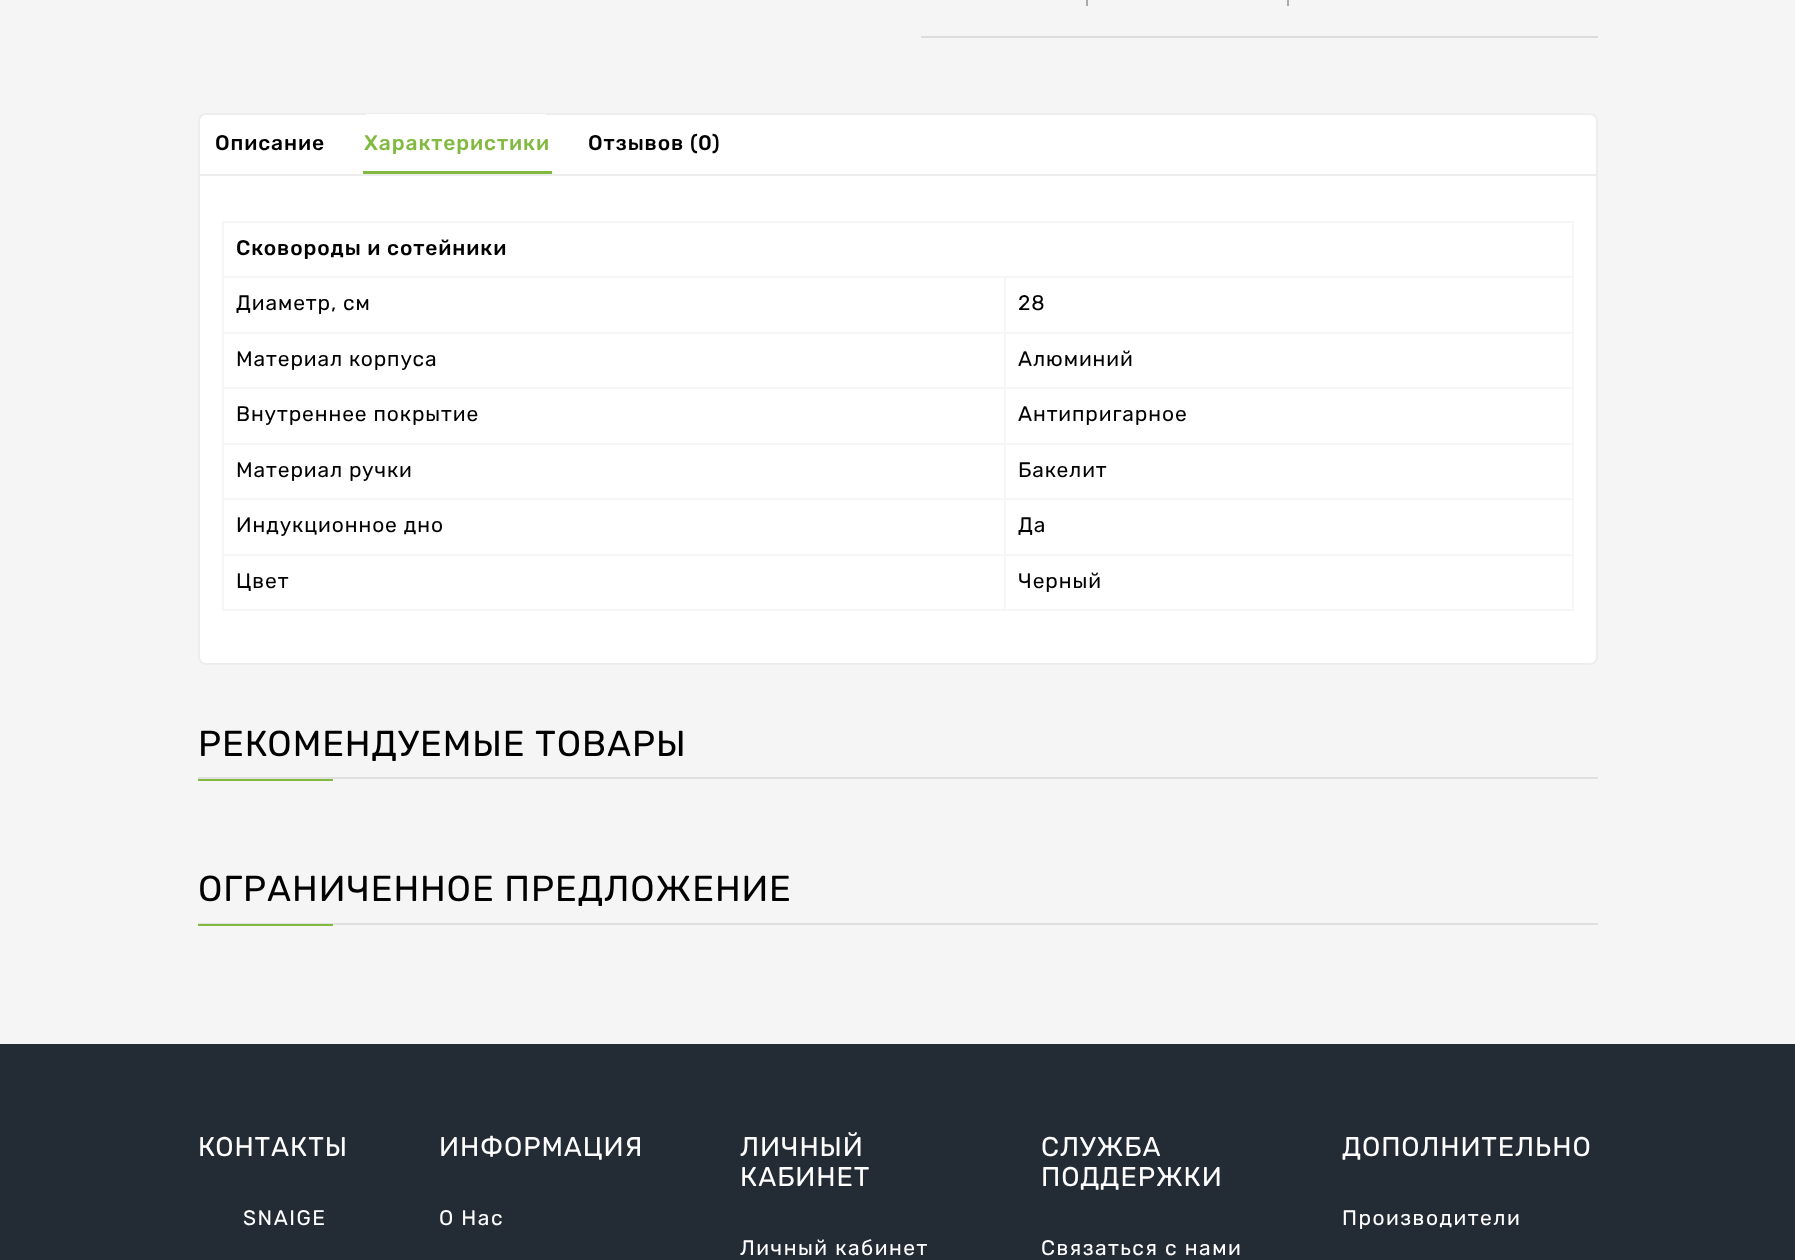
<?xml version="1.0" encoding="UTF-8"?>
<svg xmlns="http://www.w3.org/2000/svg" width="1795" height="1260">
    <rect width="100%" height="100%" fill="#F5F5F5"/>
    <rect x="1287" y="0" width="2" height="6" fill="#AAAAAA"/>
    <rect x="1086" y="0" width="2" height="6" fill="#AAAAAA"/>
    <rect x="921" y="36" width="677" height="2" fill="#DDDDDD"/>
    <rect x="199" y="114" width="1398" height="550" rx="7" fill="#FFFFFF" stroke="#EDEDED" stroke-width="2"/>
    <rect x="200" y="174" width="1396" height="2" fill="#EDEDED"/>
    <text x="215" y="150" font-family="Rubik" font-size="21" font-weight="500" letter-spacing="0.9" fill="#000000">Описание</text>
    <path d="M 369 114 H 543 C 546.5 114 549 116.5 549 120 V 174 H 363 V 120 C 363 116.5 365.5 114 369 114 Z" fill="#FFFFFF"/>
    <text x="364" y="150" font-family="Rubik" font-size="21" font-weight="500" letter-spacing="0.9" fill="#82BA41">Характеристики</text>
    <rect x="363" y="171" width="189" height="3" fill="#82BA41"/>
    <text x="588" y="150" font-family="Rubik" font-size="21" font-weight="500" letter-spacing="0.9" fill="#000000">Отзывов (0)</text>
    <rect x="222" y="221" width="1352" height="2" fill="#F6F6F6"/>
    <rect x="1004" y="276" width="570" height="2" fill="#F6F6F6"/>
    <rect x="1004" y="332" width="570" height="2" fill="#F6F6F6"/>
    <rect x="1004" y="387" width="570" height="2" fill="#F6F6F6"/>
    <rect x="1004" y="443" width="570" height="2" fill="#F6F6F6"/>
    <rect x="1004" y="498" width="570" height="2" fill="#F6F6F6"/>
    <rect x="1004" y="554" width="570" height="2" fill="#F6F6F6"/>
    <rect x="1572" y="554" width="2" height="57" fill="#F6F6F6"/>
    <rect x="1572" y="498" width="2" height="57" fill="#F6F6F6"/>
    <rect x="1572" y="443" width="2" height="57" fill="#F6F6F6"/>
    <rect x="1572" y="387" width="2" height="57" fill="#F6F6F6"/>
    <rect x="1572" y="332" width="2" height="57" fill="#F6F6F6"/>
    <rect x="1572" y="276" width="2" height="57" fill="#F6F6F6"/>
    <rect x="1572" y="221" width="2" height="57" fill="#F6F6F6"/>
    <rect x="1004" y="609" width="570" height="2" fill="#F6F6F6"/>
    <rect x="1004" y="554" width="2" height="57" fill="#F6F6F6"/>
    <rect x="222" y="554" width="783" height="2" fill="#F6F6F6"/>
    <rect x="1004" y="498" width="2" height="57" fill="#F6F6F6"/>
    <rect x="222" y="498" width="783" height="2" fill="#F6F6F6"/>
    <rect x="1004" y="443" width="2" height="57" fill="#F6F6F6"/>
    <rect x="222" y="443" width="783" height="2" fill="#F6F6F6"/>
    <rect x="1004" y="387" width="2" height="57" fill="#F6F6F6"/>
    <rect x="222" y="387" width="783" height="2" fill="#F6F6F6"/>
    <rect x="1004" y="332" width="2" height="57" fill="#F6F6F6"/>
    <rect x="222" y="332" width="783" height="2" fill="#F6F6F6"/>
    <rect x="1004" y="276" width="2" height="57" fill="#F6F6F6"/>
    <rect x="222" y="276" width="783" height="2" fill="#F6F6F6"/>
    <rect x="222" y="609" width="783" height="2" fill="#F6F6F6"/>
    <rect x="222" y="554" width="2" height="57" fill="#F6F6F6"/>
    <rect x="222" y="498" width="2" height="57" fill="#F6F6F6"/>
    <rect x="222" y="443" width="2" height="57" fill="#F6F6F6"/>
    <rect x="222" y="387" width="2" height="57" fill="#F6F6F6"/>
    <rect x="222" y="332" width="2" height="57" fill="#F6F6F6"/>
    <rect x="222" y="276" width="2" height="57" fill="#F6F6F6"/>
    <rect x="222" y="221" width="2" height="57" fill="#F6F6F6"/>
    <text x="236" y="255" font-family="Rubik" font-size="21" font-weight="500" letter-spacing="0.9" fill="#000000">Сковороды и сотейники</text>
    <text x="236" y="310" font-family="Rubik" font-size="21" letter-spacing="0.9" fill="#000000">Диаметр, см</text>
    <text x="1018" y="310" font-family="Rubik" font-size="21" letter-spacing="0.9" fill="#000000">28</text>
    <text x="236" y="366" font-family="Rubik" font-size="21" letter-spacing="0.9" fill="#000000">Материал корпуса</text>
    <text x="1018" y="366" font-family="Rubik" font-size="21" letter-spacing="0.9" fill="#000000">Алюминий</text>
    <text x="236" y="421" font-family="Rubik" font-size="21" letter-spacing="0.9" fill="#000000">Внутреннее покрытие</text>
    <text x="1018" y="421" font-family="Rubik" font-size="21" letter-spacing="0.9" fill="#000000">Антипригарное</text>
    <text x="236" y="477" font-family="Rubik" font-size="21" letter-spacing="0.9" fill="#000000">Материал ручки</text>
    <text x="1018" y="477" font-family="Rubik" font-size="21" letter-spacing="0.9" fill="#000000">Бакелит</text>
    <text x="236" y="532" font-family="Rubik" font-size="21" letter-spacing="0.9" fill="#000000">Индукционное дно</text>
    <text x="1018" y="532" font-family="Rubik" font-size="21" letter-spacing="0.9" fill="#000000">Да</text>
    <text x="236" y="588" font-family="Rubik" font-size="21" letter-spacing="0.9" fill="#000000">Цвет</text>
    <text x="1018" y="588" font-family="Rubik" font-size="21" letter-spacing="0.9" fill="#000000">Черный</text>
    <text x="198" y="756" font-family="Rubik" font-size="36" letter-spacing="0.9" fill="#000000">РЕКОМЕНДУЕМЫЕ ТОВАРЫ</text>
    <rect x="198" y="777" width="1400" height="2" fill="#E0E0E0"/>
    <rect x="198" y="779" width="135" height="2" fill="#82BA41"/>
    <text x="198" y="901" font-family="Rubik" font-size="36" letter-spacing="0.9" fill="#000000">ОГРАНИЧЕННОЕ ПРЕДЛОЖЕНИЕ</text>
    <rect x="198" y="923" width="1400" height="2" fill="#E0E0E0"/>
    <rect x="198" y="924" width="135" height="2" fill="#82BA41"/>
    <rect x="0" y="1044" width="1795" height="216" fill="#232B35"/>
    <text x="198" y="1156" font-family="Rubik" font-size="27" letter-spacing="0.9" fill="#FFFFFF">КОНТАКТЫ</text>
    <text x="243" y="1225" font-family="Rubik" font-size="21" letter-spacing="1.5" fill="#FFFFFF">SNAIGE</text>
    <text x="439" y="1156" font-family="Rubik" font-size="27" letter-spacing="0.9" fill="#FFFFFF">ИНФОРМАЦИЯ</text>
    <text x="439" y="1225" font-family="Rubik" font-size="21" letter-spacing="1.5" fill="#FFFFFF">О Нас</text>
    <text font-family="Rubik" font-size="27" letter-spacing="0.9" fill="#FFFFFF">
        <tspan x="740" y="1156">ЛИЧНЫЙ</tspan>
        <tspan x="740" y="1186">КАБИНЕТ</tspan>
    </text>
    <text x="740" y="1255" font-family="Rubik" font-size="21" letter-spacing="1.5" fill="#FFFFFF">Личный кабинет</text>
    <text font-family="Rubik" font-size="27" letter-spacing="0.9" fill="#FFFFFF">
        <tspan x="1041" y="1156">СЛУЖБА</tspan>
        <tspan x="1041" y="1186">ПОДДЕРЖКИ</tspan>
    </text>
    <text x="1041" y="1255" font-family="Rubik" font-size="21" letter-spacing="1.5" fill="#FFFFFF">Связаться с нами</text>
    <text x="1342" y="1156" font-family="Rubik" font-size="27" letter-spacing="0.9" fill="#FFFFFF">ДОПОЛНИТЕЛЬНО</text>
    <text x="1342" y="1225" font-family="Rubik" font-size="21" letter-spacing="1.5" fill="#FFFFFF">Производители</text>
</svg>
